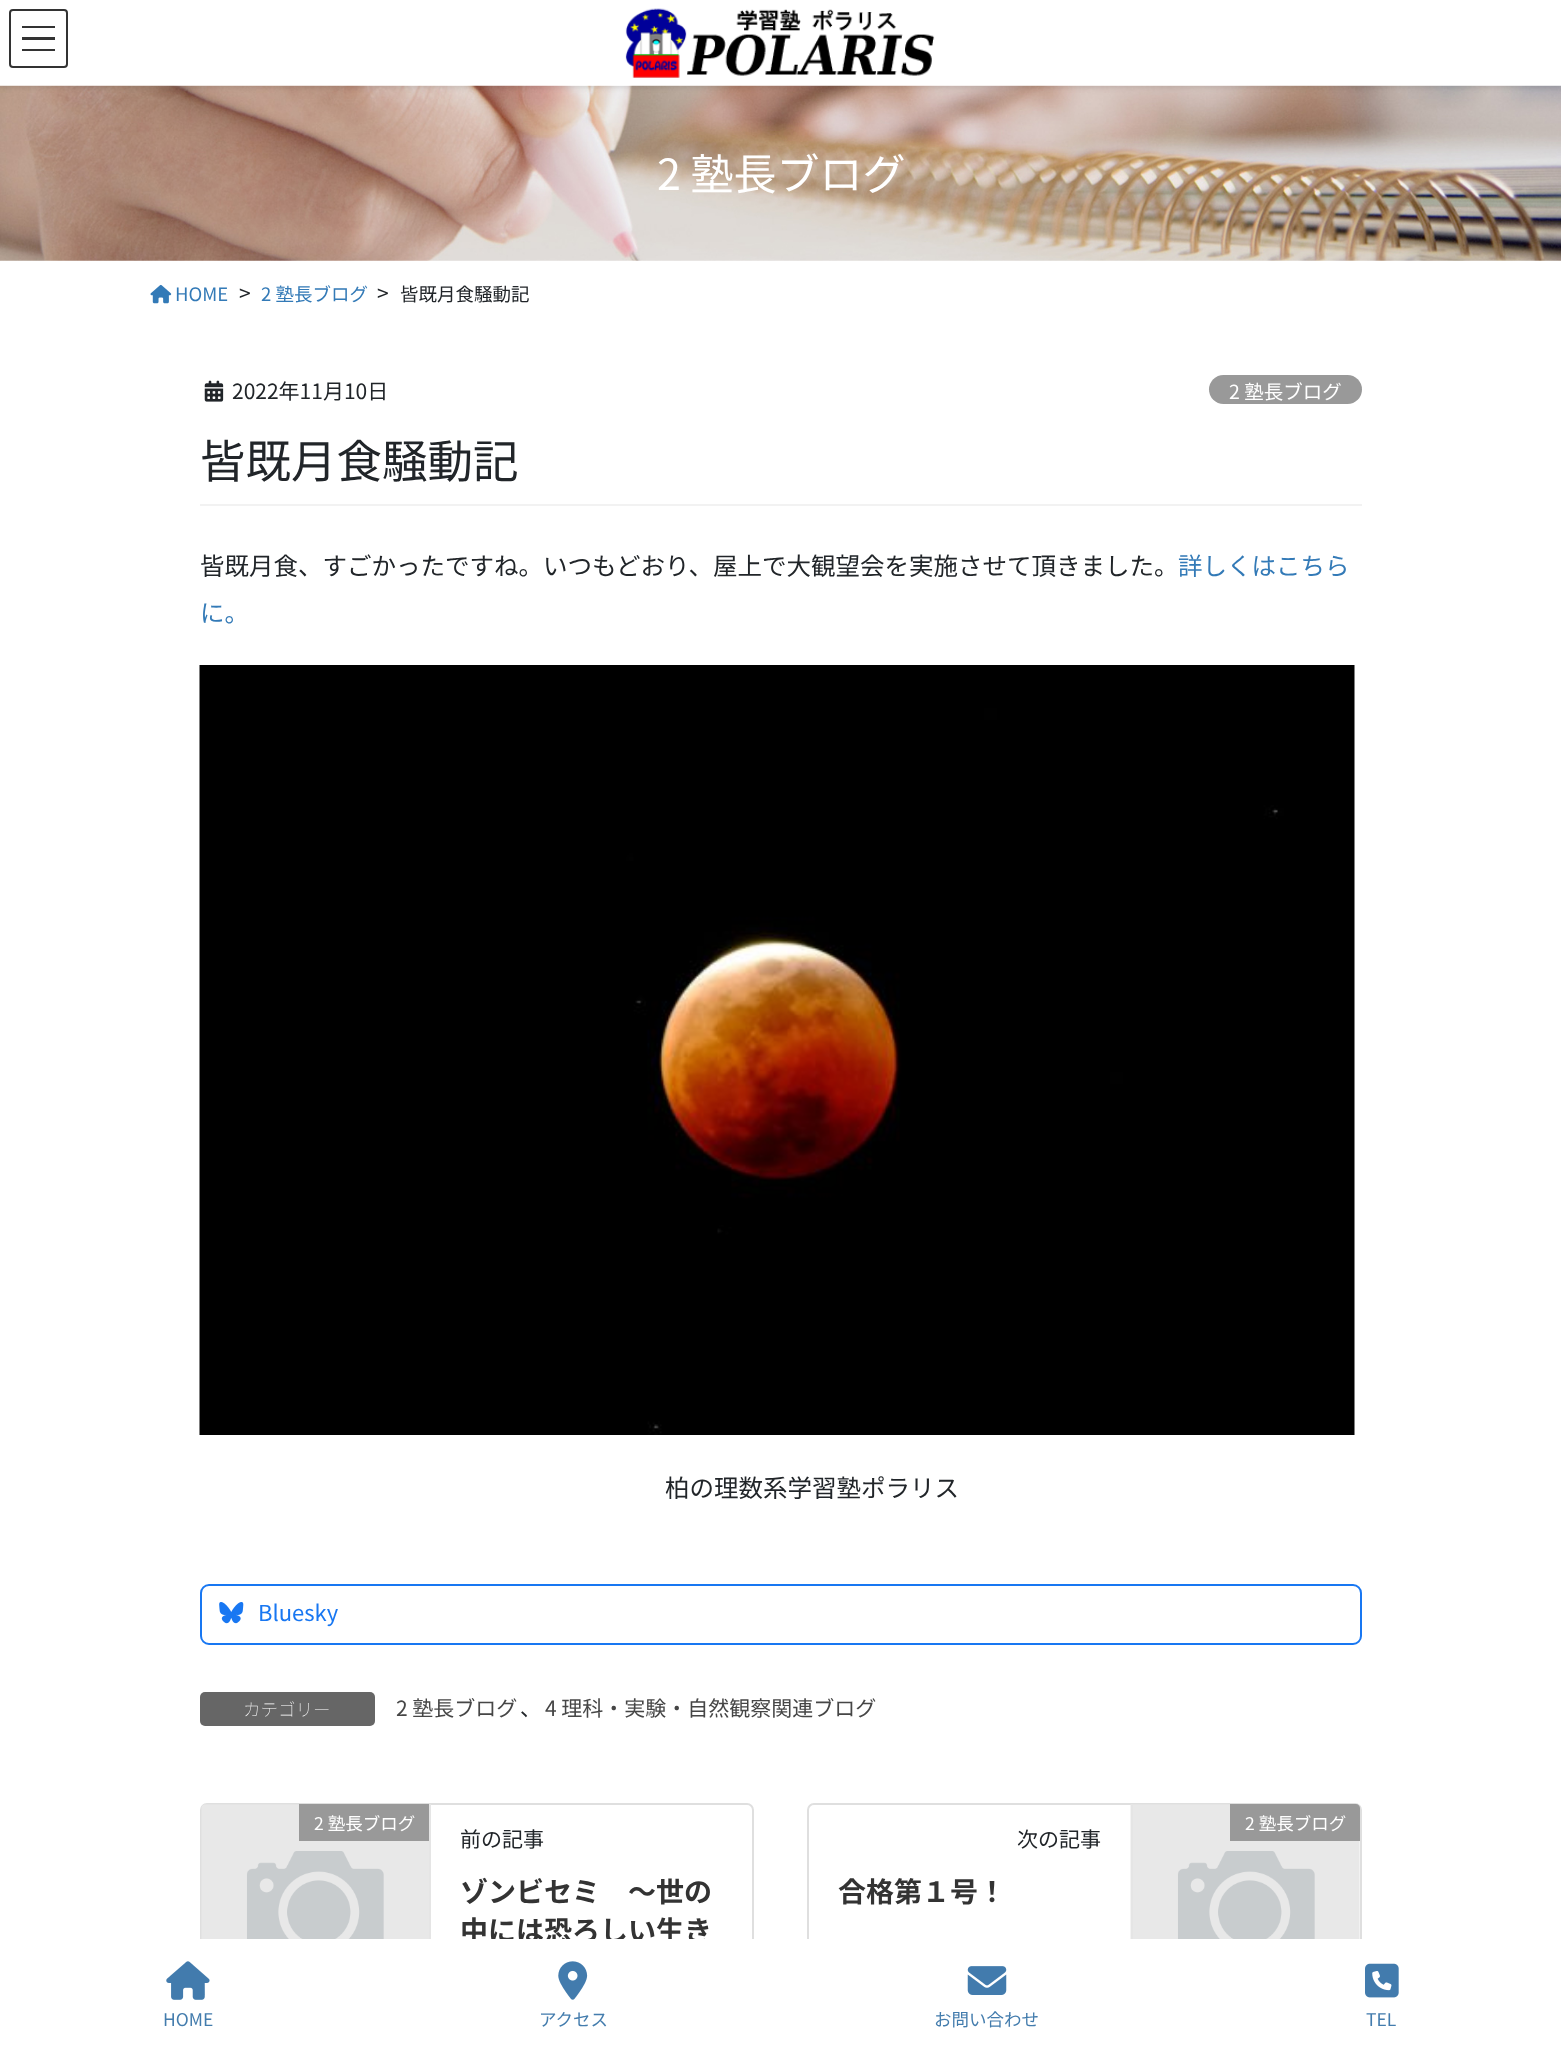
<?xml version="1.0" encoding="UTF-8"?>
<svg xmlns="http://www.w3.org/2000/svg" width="1561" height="2047">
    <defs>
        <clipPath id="clip1"><path d="M 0 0 H 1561 V 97 H 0 Z M 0 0 H 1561 V 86 H 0 Z" clip-rule="evenodd"/></clipPath>
        <filter id="blur1" x="-50%" y="-200%" width="200%" height="500%"><feGaussianBlur stdDeviation="2.5"/></filter>
    </defs>
    <rect width="100%" height="100%" fill="#FFFFFF"/>
    <image x="0" y="85" width="1561" height="176" href="img_02.png"/>
    <g clip-path="url(#clip1)">
        <rect x="0" y="2" width="1561" height="86" fill="#000000" fill-opacity="0.1" filter="url(#blur1)"/>
    </g>
    <image x="625" y="8" width="310" height="70" href="img_01.png"/>
    <rect x="22" y="26" width="33" height="2" fill="#333333"/>
    <rect x="22" y="37" width="33" height="3" fill="#333333"/>
    <rect x="22" y="49" width="33" height="2" fill="#333333"/>
    <rect x="10" y="10" width="57" height="57" rx="3" fill="none" stroke="#333333" stroke-width="2"/>
    <text x="657" y="190" font-family="Noto Sans JP" font-size="43" fill="#FFFFFF">2 塾長ブログ</text>
    <image x="150" y="284" width="22" height="20" href="img_03.png"/>
    <text x="175" y="301" font-family="Noto Sans JP" font-size="18.5" fill="#337AB7">HOME</text>
    <text x="239" y="301" font-family="Noto Sans JP" font-size="21" fill="#212529">&gt;</text>
    <text x="261" y="301" font-family="Noto Sans JP" font-size="18.5" fill="#337AB7">2 塾長ブログ</text>
    <text x="377" y="301" font-family="Noto Sans JP" font-size="21" fill="#212529">&gt;</text>
    <text x="400" y="301" font-family="Noto Sans JP" font-size="18.5" fill="#212529">皆既月食騒動記</text>
    <rect x="200" y="504" width="1162" height="2" fill="#F2F2F2"/>
    <image x="204" y="380" width="20" height="22" href="img_04.png"/>
    <text x="232" y="399" font-family="Noto Sans JP" font-size="21" fill="#212529">2022年11月10日</text>
    <rect x="1209" y="375" width="153" height="29" rx="14.5" fill="#999999"/>
    <text x="1229" y="399" font-family="Noto Sans JP" font-size="19.5" fill="#FFFFFF">2 塾長ブログ</text>
    <text x="200" y="478" font-family="Noto Sans JP" font-size="45.5" fill="#212529">皆既月食騒動記</text>
    <text x="200" y="575" font-family="Noto Sans JP" font-size="24.5" fill="#212529">皆既月食、すごかったですね。いつもどおり、屋上で大観望会を実施させて頂きました。</text>
    <text x="1178" y="575" font-family="Noto Sans JP" font-size="24.5" fill="#337AB7">詳しくはこちら</text>
    <text x="200" y="622" font-family="Noto Sans JP" font-size="24.5" fill="#337AB7">に。</text>
    <image x="199" y="665" width="1156" height="770" href="img_05.png"/>
    <text x="665" y="1497" font-family="Noto Sans JP" font-size="24.5" fill="#212529">柏の理数系学習塾ポラリス</text>
    <rect x="201" y="1585" width="1160" height="59" rx="8" fill="none" stroke="#1877F2" stroke-width="2"/>
    <image x="219" y="1602" width="25" height="22" href="img_06.png"/>
    <text x="258" y="1621" font-family="Noto Sans JP" font-size="22" fill="#1877F2">Bluesky</text>
    <rect x="200" y="1692" width="175" height="34" rx="5" fill="#666666"/>
    <text x="243" y="1716" font-family="Noto Sans JP" font-size="17.5" font-weight="100" fill="#FFFFFF">カテゴリー</text>
    <text x="396" y="1716" font-family="Noto Sans JP" font-size="21" fill="#464646">2 塾長ブログ</text>
    <text x="520" y="1716" font-family="Noto Sans JP" font-size="21" fill="#212529">、</text>
    <text x="545" y="1716" font-family="Noto Sans JP" font-size="21" fill="#464646">4 理科・実験・自然観察関連ブログ</text>
    <rect x="201" y="1804" width="552" height="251" rx="6" fill="none" stroke="#DFDFDF" stroke-width="2"/>
    <image x="201" y="1804" width="228" height="135" href="img_07.png"/>
    <rect x="429" y="1804" width="2" height="135" fill="#E5E5E5"/>
    <rect x="299" y="1804" width="130" height="37" fill="#999999"/>
    <text x="314" y="1830" font-family="Noto Sans JP" font-size="17.5" fill="#FFFFFF">2 塾長ブログ</text>
    <text x="460" y="1847" font-family="Noto Sans JP" font-size="21" fill="#212529">前の記事</text>
    <text font-family="Noto Sans JP" font-size="28" font-weight="700" fill="#333333">
        <tspan x="460" y="1902">ゾンビセミ　～世の</tspan>
        <tspan x="460" y="1941">中には恐ろしい生き</tspan>
    </text>
    <rect x="808" y="1804" width="553" height="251" rx="6" fill="none" stroke="#DFDFDF" stroke-width="2"/>
    <image x="1130" y="1804" width="230" height="135" href="img_08.png"/>
    <rect x="1131" y="1804" width="2" height="135" fill="#E5E5E5"/>
    <path d="M 1230 1804 H 1356 C 1358 1804 1360 1806 1360 1808 V 1841 H 1230 Z" fill="#999999"/>
    <text x="1245" y="1830" font-family="Noto Sans JP" font-size="17.5" fill="#FFFFFF">2 塾長ブログ</text>
    <text x="1017" y="1847" font-family="Noto Sans JP" font-size="21" fill="#212529">次の記事</text>
    <text x="838" y="1902" font-family="Noto Sans JP" font-size="28" font-weight="700" fill="#333333">合格第１号！</text>
    <rect x="200" y="1939" width="1162" height="108" fill="#FFFFFF"/>
    <image x="166" y="1961" width="44" height="39" href="img_09.png"/>
    <text x="163" y="2026" font-family="Noto Sans JP" font-size="17.5" fill="#437CAD">HOME</text>
    <image x="558" y="1961" width="30" height="39" href="img_10.png"/>
    <text x="539" y="2026" font-family="Noto Sans JP" font-size="17.5" fill="#437CAD">アクセス</text>
    <image x="967" y="1966" width="40" height="29" href="img_11.png"/>
    <text x="934" y="2026" font-family="Noto Sans JP" font-size="17.5" fill="#437CAD">お問い合わせ</text>
    <image x="1365" y="1963" width="34" height="35" href="img_12.png"/>
    <text x="1366" y="2026" font-family="Noto Sans JP" font-size="17.5" fill="#437CAD">TEL</text>
</svg>
